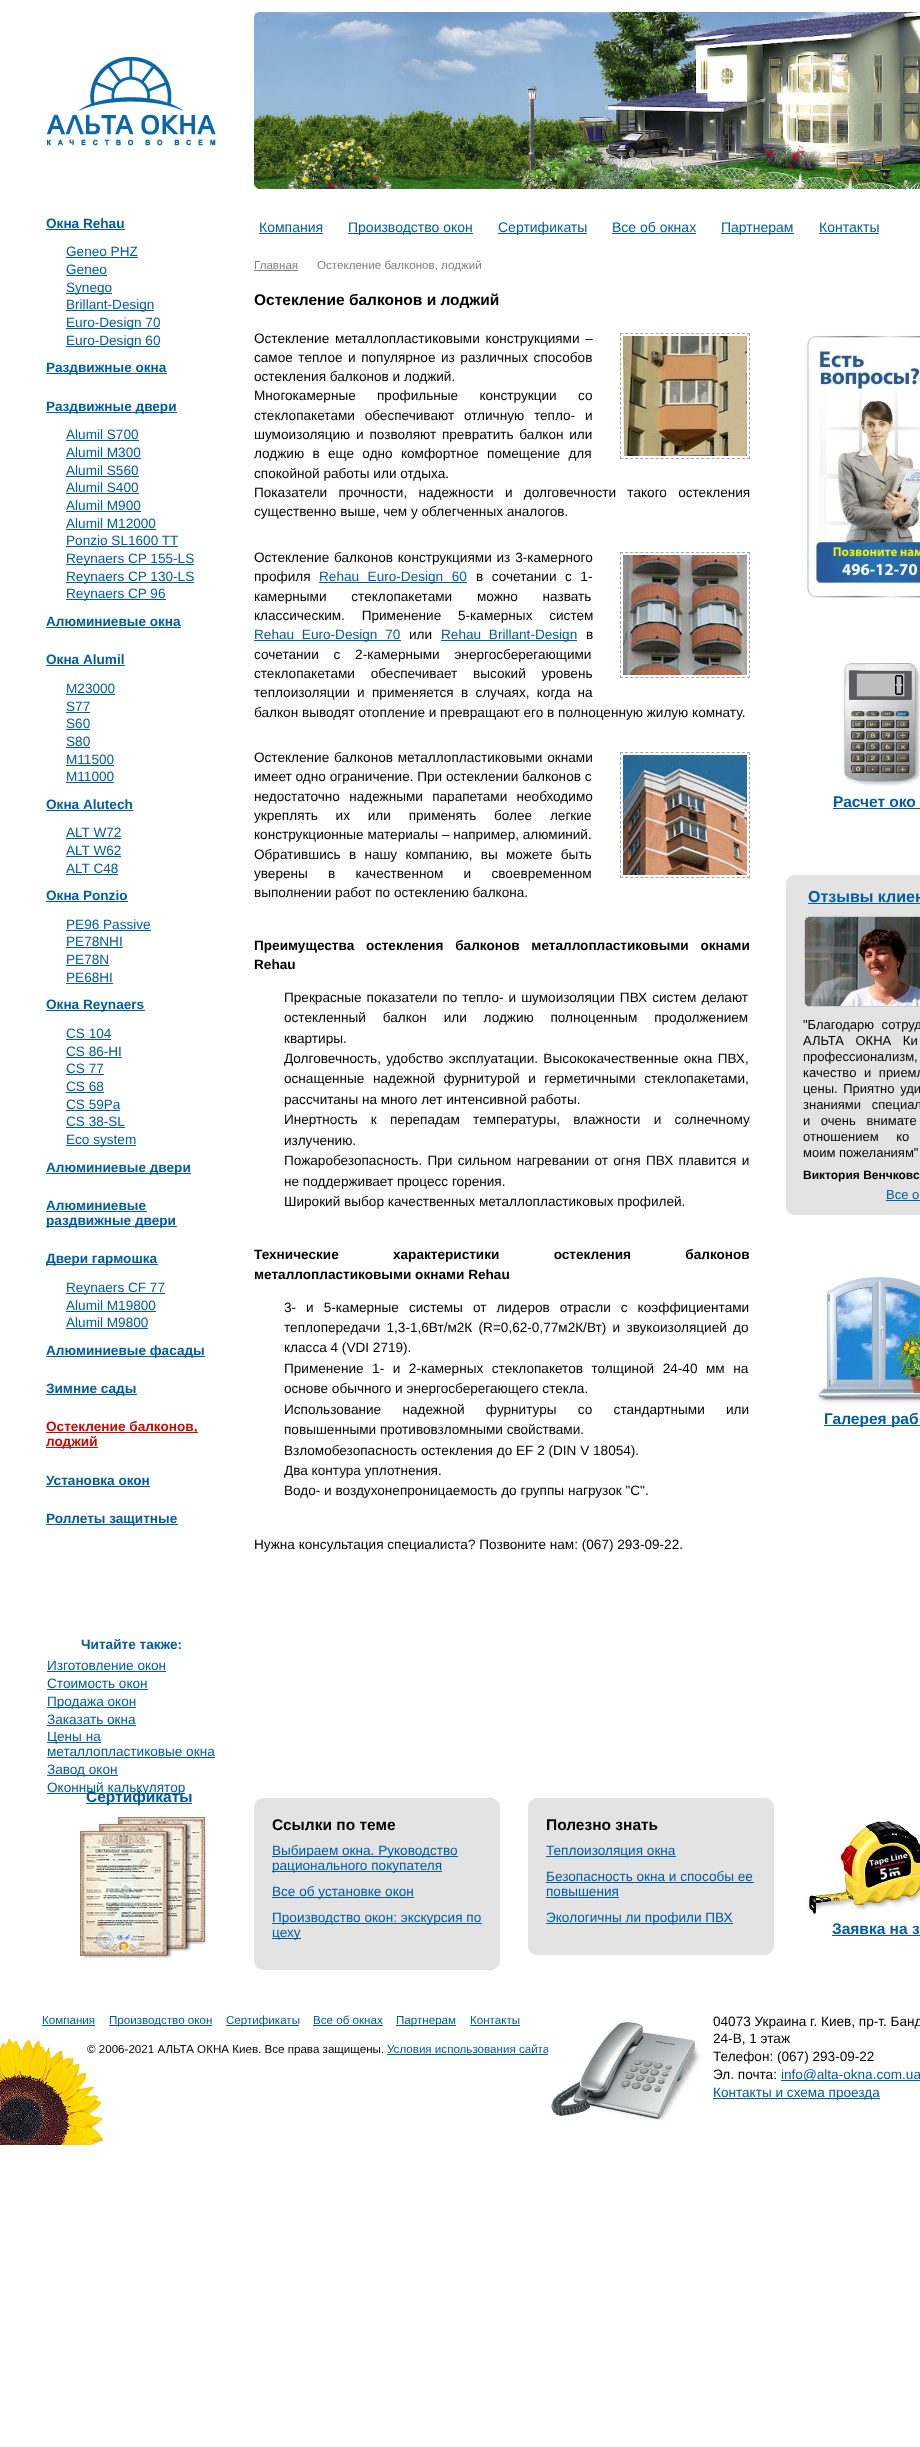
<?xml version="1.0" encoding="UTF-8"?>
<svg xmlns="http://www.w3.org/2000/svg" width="920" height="2447">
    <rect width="100%" height="100%" fill="#FFFFFF"/>
    <image x="0" y="2038" width="104" height="107" href="img_01.png"/>
    <image x="47" y="57" width="169" height="89" href="img_02.png"/>
    <image x="254" y="12" width="666" height="177" href="img_03.png"/>
    <text x="46" y="228" font-family="Liberation Sans" font-size="13.6" font-weight="700" fill="#005CA4">Окна Rehau</text>
    <rect x="46" y="229" width="79" height="1" fill="#005CA4"/>
    <text x="66" y="256" font-family="Liberation Sans" font-size="13.6" fill="#005CA4">Geneo PHZ</text>
    <rect x="66" y="257" width="72" height="1" fill="#005CA4"/>
    <text x="66" y="274" font-family="Liberation Sans" font-size="13.6" fill="#005CA4">Geneo</text>
    <rect x="66" y="275" width="41" height="1" fill="#005CA4"/>
    <rect x="66" y="293" width="46" height="1" fill="#005CA4"/>
    <text x="66" y="292" font-family="Liberation Sans" font-size="13.6" fill="#005CA4">Synego</text>
    <rect x="66" y="310" width="88" height="1" fill="#005CA4"/>
    <text x="66" y="309" font-family="Liberation Sans" font-size="13.6" fill="#005CA4">Brillant-Design</text>
    <rect x="66" y="328" width="94" height="1" fill="#005CA4"/>
    <text x="66" y="327" font-family="Liberation Sans" font-size="13.6" fill="#005CA4">Euro-Design 70</text>
    <rect x="66" y="346" width="94" height="1" fill="#005CA4"/>
    <text x="66" y="345" font-family="Liberation Sans" font-size="13.6" fill="#005CA4">Euro-Design 60</text>
    <rect x="46" y="373" width="121" height="1" fill="#005CA4"/>
    <text x="46" y="372" font-family="Liberation Sans" font-size="13.6" font-weight="700" fill="#005CA4">Раздвижные окна</text>
    <rect x="46" y="412" width="131" height="1" fill="#005CA4"/>
    <text x="46" y="411" font-family="Liberation Sans" font-size="13.6" font-weight="700" fill="#005CA4">Раздвижные двери</text>
    <text x="66" y="439" font-family="Liberation Sans" font-size="13.6" fill="#005CA4">Alumil S700</text>
    <rect x="66" y="440" width="73" height="1" fill="#005CA4"/>
    <text x="66" y="457" font-family="Liberation Sans" font-size="13.6" fill="#005CA4">Alumil M300</text>
    <rect x="66" y="458" width="75" height="1" fill="#005CA4"/>
    <text x="66" y="475" font-family="Liberation Sans" font-size="13.6" fill="#005CA4">Alumil S560</text>
    <rect x="66" y="476" width="73" height="1" fill="#005CA4"/>
    <text x="66" y="492" font-family="Liberation Sans" font-size="13.6" fill="#005CA4">Alumil S400</text>
    <rect x="66" y="493" width="73" height="1" fill="#005CA4"/>
    <text x="66" y="510" font-family="Liberation Sans" font-size="13.6" fill="#005CA4">Alumil M900</text>
    <rect x="66" y="511" width="75" height="1" fill="#005CA4"/>
    <text x="66" y="528" font-family="Liberation Sans" font-size="13.6" fill="#005CA4">Alumil M12000</text>
    <rect x="66" y="529" width="90" height="1" fill="#005CA4"/>
    <text x="66" y="545" font-family="Liberation Sans" font-size="13.6" fill="#005CA4">Ponzio SL1600 TT</text>
    <rect x="66" y="546" width="112" height="1" fill="#005CA4"/>
    <rect x="66" y="564" width="128" height="1" fill="#005CA4"/>
    <text x="66" y="563" font-family="Liberation Sans" font-size="13.6" fill="#005CA4">Reynaers CP 155-LS</text>
    <rect x="66" y="582" width="128" height="1" fill="#005CA4"/>
    <text x="66" y="581" font-family="Liberation Sans" font-size="13.6" fill="#005CA4">Reynaers CP 130-LS</text>
    <rect x="66" y="599" width="100" height="1" fill="#005CA4"/>
    <text x="66" y="598" font-family="Liberation Sans" font-size="13.6" fill="#005CA4">Reynaers CP 96</text>
    <text x="46" y="626" font-family="Liberation Sans" font-size="13.6" font-weight="700" fill="#005CA4">Алюминиевые окна</text>
    <rect x="46" y="627" width="135" height="1" fill="#005CA4"/>
    <text x="46" y="664" font-family="Liberation Sans" font-size="13.6" font-weight="700" fill="#005CA4">Окна Alumil</text>
    <rect x="46" y="665" width="79" height="1" fill="#005CA4"/>
    <text x="66" y="693" font-family="Liberation Sans" font-size="13.6" fill="#005CA4">M23000</text>
    <rect x="66" y="694" width="49" height="1" fill="#005CA4"/>
    <text x="66" y="711" font-family="Liberation Sans" font-size="13.6" fill="#005CA4">S77</text>
    <rect x="66" y="712" width="24" height="1" fill="#005CA4"/>
    <text x="66" y="728" font-family="Liberation Sans" font-size="13.6" fill="#005CA4">S60</text>
    <rect x="66" y="729" width="24" height="1" fill="#005CA4"/>
    <text x="66" y="746" font-family="Liberation Sans" font-size="13.6" fill="#005CA4">S80</text>
    <rect x="66" y="747" width="24" height="1" fill="#005CA4"/>
    <text x="66" y="764" font-family="Liberation Sans" font-size="13.6" fill="#005CA4">M11500</text>
    <rect x="66" y="765" width="48" height="1" fill="#005CA4"/>
    <text x="66" y="781" font-family="Liberation Sans" font-size="13.6" fill="#005CA4">M11000</text>
    <rect x="66" y="782" width="48" height="1" fill="#005CA4"/>
    <text x="46" y="809" font-family="Liberation Sans" font-size="13.6" font-weight="700" fill="#005CA4">Окна Alutech</text>
    <rect x="46" y="810" width="87" height="1" fill="#005CA4"/>
    <text x="66" y="837" font-family="Liberation Sans" font-size="13.6" fill="#005CA4">ALT W72</text>
    <rect x="66" y="838" width="55" height="1" fill="#005CA4"/>
    <text x="66" y="855" font-family="Liberation Sans" font-size="13.6" fill="#005CA4">ALT W62</text>
    <rect x="66" y="856" width="55" height="1" fill="#005CA4"/>
    <text x="66" y="873" font-family="Liberation Sans" font-size="13.6" fill="#005CA4">ALT C48</text>
    <rect x="66" y="874" width="52" height="1" fill="#005CA4"/>
    <text x="46" y="900" font-family="Liberation Sans" font-size="13.6" font-weight="700" fill="#005CA4">Окна Ponzio</text>
    <rect x="46" y="901" width="82" height="1" fill="#005CA4"/>
    <text x="66" y="929" font-family="Liberation Sans" font-size="13.6" fill="#005CA4">PE96 Passive</text>
    <rect x="66" y="930" width="85" height="1" fill="#005CA4"/>
    <text x="66" y="946" font-family="Liberation Sans" font-size="13.6" fill="#005CA4">PE78NHI</text>
    <rect x="66" y="947" width="57" height="1" fill="#005CA4"/>
    <text x="66" y="964" font-family="Liberation Sans" font-size="13.6" fill="#005CA4">PE78N</text>
    <rect x="66" y="965" width="43" height="1" fill="#005CA4"/>
    <text x="66" y="982" font-family="Liberation Sans" font-size="13.6" fill="#005CA4">PE68HI</text>
    <rect x="66" y="983" width="47" height="1" fill="#005CA4"/>
    <rect x="46" y="1010" width="99" height="1" fill="#005CA4"/>
    <text x="46" y="1009" font-family="Liberation Sans" font-size="13.6" font-weight="700" fill="#005CA4">Окна Reynaers</text>
    <text x="66" y="1038" font-family="Liberation Sans" font-size="13.6" fill="#005CA4">CS 104</text>
    <rect x="66" y="1039" width="45" height="1" fill="#005CA4"/>
    <text x="66" y="1056" font-family="Liberation Sans" font-size="13.6" fill="#005CA4">CS 86-HI</text>
    <rect x="66" y="1057" width="56" height="1" fill="#005CA4"/>
    <text x="66" y="1073" font-family="Liberation Sans" font-size="13.6" fill="#005CA4">CS 77</text>
    <rect x="66" y="1074" width="38" height="1" fill="#005CA4"/>
    <text x="66" y="1091" font-family="Liberation Sans" font-size="13.6" fill="#005CA4">CS 68</text>
    <rect x="66" y="1092" width="38" height="1" fill="#005CA4"/>
    <text x="66" y="1109" font-family="Liberation Sans" font-size="13.6" fill="#005CA4">CS 59Pa</text>
    <rect x="66" y="1110" width="54" height="1" fill="#005CA4"/>
    <text x="66" y="1126" font-family="Liberation Sans" font-size="13.6" fill="#005CA4">CS 38-SL</text>
    <rect x="66" y="1127" width="59" height="1" fill="#005CA4"/>
    <rect x="66" y="1145" width="70" height="1" fill="#005CA4"/>
    <text x="66" y="1144" font-family="Liberation Sans" font-size="13.6" fill="#005CA4">Eco system</text>
    <rect x="46" y="1173" width="145" height="1" fill="#005CA4"/>
    <text x="46" y="1172" font-family="Liberation Sans" font-size="13.6" font-weight="700" fill="#005CA4">Алюминиевые двери</text>
    <text x="46" y="1210" font-family="Liberation Sans" font-size="13.6" font-weight="700" fill="#005CA4">Алюминиевые</text>
    <rect x="46" y="1211" width="101" height="1" fill="#005CA4"/>
    <rect x="46" y="1226" width="131" height="1" fill="#005CA4"/>
    <text x="46" y="1225" font-family="Liberation Sans" font-size="13.6" font-weight="700" fill="#005CA4">раздвижные двери</text>
    <rect x="46" y="1264" width="112" height="1" fill="#005CA4"/>
    <text x="46" y="1263" font-family="Liberation Sans" font-size="13.6" font-weight="700" fill="#005CA4">Двери гармошка</text>
    <rect x="66" y="1293" width="99" height="1" fill="#005CA4"/>
    <text font-family="Liberation Sans" font-size="13.6" fill="#005CA4">
        <tspan x="66" y="1292">Reynaers CF 77</tspan>
        <tspan x="66" y="1310">Alumil M19800</tspan>
    </text>
    <rect x="66" y="1311" width="90" height="1" fill="#005CA4"/>
    <text x="66" y="1327" font-family="Liberation Sans" font-size="13.6" fill="#005CA4">Alumil M9800</text>
    <rect x="66" y="1328" width="82" height="1" fill="#005CA4"/>
    <rect x="46" y="1356" width="159" height="1" fill="#005CA4"/>
    <text x="46" y="1355" font-family="Liberation Sans" font-size="13.6" font-weight="700" fill="#005CA4">Алюминиевые фасады</text>
    <rect x="46" y="1394" width="91" height="1" fill="#005CA4"/>
    <text x="46" y="1393" font-family="Liberation Sans" font-size="13.6" font-weight="700" fill="#005CA4">Зимние сады</text>
    <rect x="46" y="1432" width="152" height="1" fill="#C90A00"/>
    <text x="46" y="1431" font-family="Liberation Sans" font-size="13.6" font-weight="700" fill="#C90A00">Остекление балконов,</text>
    <rect x="46" y="1447" width="52" height="1" fill="#C90A00"/>
    <text x="46" y="1446" font-family="Liberation Sans" font-size="13.6" font-weight="700" fill="#C90A00">лоджий</text>
    <text x="46" y="1485" font-family="Liberation Sans" font-size="13.6" font-weight="700" fill="#005CA4">Установка окон</text>
    <rect x="46" y="1486" width="104" height="1" fill="#005CA4"/>
    <rect x="46" y="1524" width="132" height="1" fill="#005CA4"/>
    <text x="46" y="1523" font-family="Liberation Sans" font-size="13.6" font-weight="700" fill="#005CA4">Роллеты защитные</text>
    <text x="81" y="1649" font-family="Liberation Sans" font-size="13.6" font-weight="700" fill="#005CA4">Читайте также:</text>
    <text x="47" y="1670" font-family="Liberation Sans" font-size="13.6" fill="#005CA4">Изготовление окон</text>
    <rect x="47" y="1671" width="119" height="1" fill="#005CA4"/>
    <text x="47" y="1688" font-family="Liberation Sans" font-size="13.6" fill="#005CA4">Стоимость окон</text>
    <rect x="47" y="1689" width="101" height="1" fill="#005CA4"/>
    <rect x="47" y="1707" width="89" height="1" fill="#005CA4"/>
    <text font-family="Liberation Sans" font-size="13.6" fill="#005CA4">
        <tspan x="47" y="1706">Продажа окон</tspan>
        <tspan x="47" y="1724">Заказать окна</tspan>
    </text>
    <rect x="47" y="1725" width="89" height="1" fill="#005CA4"/>
    <rect x="47" y="1742" width="54" height="1" fill="#005CA4"/>
    <text font-family="Liberation Sans" font-size="13.6" fill="#005CA4">
        <tspan x="47" y="1741">Цены на</tspan>
        <tspan x="47" y="1756">металлопластиковые окна</tspan>
    </text>
    <rect x="47" y="1757" width="168" height="1" fill="#005CA4"/>
    <rect x="47" y="1775" width="71" height="1" fill="#005CA4"/>
    <text x="47" y="1774" font-family="Liberation Sans" font-size="13.6" fill="#005CA4">Завод окон</text>
    <rect x="47" y="1793" width="138" height="1" fill="#005CA4"/>
    <text x="47" y="1792" font-family="Liberation Sans" font-size="13.6" fill="#005CA4">Оконный калькулятор</text>
    <text x="259" y="232" font-family="Liberation Sans" font-size="14" fill="#005CA4">Компания</text>
    <rect x="259" y="233" width="64" height="1" fill="#005CA4"/>
    <rect x="348" y="233" width="125" height="1" fill="#005CA4"/>
    <text x="348" y="232" font-family="Liberation Sans" font-size="14" fill="#005CA4">Производство окон</text>
    <rect x="498" y="233" width="89" height="1" fill="#005CA4"/>
    <text x="498" y="232" font-family="Liberation Sans" font-size="14" fill="#005CA4">Сертификаты</text>
    <text x="612" y="232" font-family="Liberation Sans" font-size="14" fill="#005CA4">Все об окнах</text>
    <rect x="612" y="233" width="84" height="1" fill="#005CA4"/>
    <rect x="721" y="233" width="73" height="1" fill="#005CA4"/>
    <text x="721" y="232" font-family="Liberation Sans" font-size="14" fill="#005CA4">Партнерам</text>
    <text x="819" y="232" font-family="Liberation Sans" font-size="14" fill="#005CA4">Контакты</text>
    <rect x="819" y="233" width="60" height="1" fill="#005CA4"/>
    <text x="254" y="269" font-family="Liberation Sans" font-size="11.6" fill="#808080">Главная</text>
    <rect x="254" y="270" width="44" height="1" fill="#808080"/>
    <text x="317" y="269" font-family="Liberation Sans" font-size="11.6" fill="#808080">Остекление балконов, лоджий</text>
    <text x="254" y="305" font-family="Liberation Sans" font-size="15.5" font-weight="700" fill="#000000">Остекление балконов и лоджий</text>
    <text x="254" y="343" word-spacing="2" font-family="Liberation Sans" font-size="13.6" fill="#000000">Остекление металлопластиковыми конструкциями –</text>
    <path d="M 620 333.5 H 750" fill="none" stroke="#97A6B1" stroke-dasharray="3 2.08"/>
    <path d="M 749.5 333 V 459" fill="none" stroke="#97A6B1" stroke-dasharray="3 1.92"/>
    <path d="M 620 458.5 H 750" fill="none" stroke="#97A6B1" stroke-dasharray="3 2.08"/>
    <path d="M 620.5 333 V 459" fill="none" stroke="#97A6B1" stroke-dasharray="3 1.92"/>
    <image x="623" y="336" width="124" height="120" href="img_04.png"/>
    <text font-family="Liberation Sans" font-size="13.6" fill="#000000">
        <tspan x="254" y="362" word-spacing="1.75">самое теплое и популярное из различных способов</tspan>
        <tspan x="254" y="381">остекления балконов и лоджий.</tspan>
        <tspan x="254" y="400" word-spacing="17.5">Многокамерные профильные конструкции со</tspan>
        <tspan x="254" y="420" word-spacing="6">стеклопакетами обеспечивают отличную тепло- и</tspan>
        <tspan x="254" y="439" word-spacing="2">шумоизоляцию и позволяют превратить балкон или</tspan>
        <tspan x="254" y="458" word-spacing="4.5">лоджию в еще одно комфортное помещение для</tspan>
        <tspan x="254" y="478">спокойной работы или отдыха.</tspan>
        <tspan x="254" y="497" word-spacing="7.5">Показатели прочности, надежности и долговечности такого остекления</tspan>
        <tspan x="254" y="516">существенно выше, чем у облегченных аналогов.</tspan>
    </text>
    <text x="254" y="562" word-spacing="1" font-family="Liberation Sans" font-size="13.6" fill="#000000">Остекление балконов конструкциями из 3-камерного</text>
    <path d="M 620 552.5 H 750" fill="none" stroke="#97A6B1" stroke-dasharray="3 2.08"/>
    <path d="M 749.5 552 V 678" fill="none" stroke="#97A6B1" stroke-dasharray="3 1.92"/>
    <path d="M 620 677.5 H 750" fill="none" stroke="#97A6B1" stroke-dasharray="3 2.08"/>
    <path d="M 620.5 552 V 678" fill="none" stroke="#97A6B1" stroke-dasharray="3 1.92"/>
    <image x="623" y="555" width="124" height="120" href="img_05.png"/>
    <text x="254" y="581" font-family="Liberation Sans" font-size="13.6" fill="#000000">профиля</text>
    <rect x="319" y="582" width="148" height="1" fill="#005CA4"/>
    <text x="319" y="581" word-spacing="4.75" font-family="Liberation Sans" font-size="13.6" fill="#005CA4">Rehau Euro-Design 60</text>
    <text x="476" y="581" word-spacing="4.75" font-family="Liberation Sans" font-size="13.6" fill="#000000">в сочетании с 1-</text>
    <text font-family="Liberation Sans" font-size="13.6" fill="#000000">
        <tspan x="254" y="601" word-spacing="21">камерными стеклопакетами можно назвать</tspan>
        <tspan x="254" y="620" word-spacing="13">классическим. Применение 5-камерных систем</tspan>
    </text>
    <rect x="254" y="640" width="147" height="1" fill="#005CA4"/>
    <text x="254" y="639" word-spacing="4" font-family="Liberation Sans" font-size="13.6" fill="#005CA4">Rehau Euro-Design 70</text>
    <text x="409" y="639" font-family="Liberation Sans" font-size="13.6" fill="#000000">или</text>
    <rect x="441" y="640" width="136" height="1" fill="#005CA4"/>
    <text x="441" y="639" word-spacing="4" font-family="Liberation Sans" font-size="13.6" fill="#005CA4">Rehau Brillant-Design</text>
    <text x="586" y="639" font-family="Liberation Sans" font-size="13.6" fill="#000000">в</text>
    <text font-family="Liberation Sans" font-size="13.6" fill="#000000">
        <tspan x="254" y="659" word-spacing="11">сочетании с 2-камерными энергосберегающими</tspan>
        <tspan x="254" y="678" word-spacing="12">стеклопакетами обеспечивает высокий уровень</tspan>
        <tspan x="254" y="697" word-spacing="3.5">теплоизоляции и применяется в случаях, когда на</tspan>
        <tspan x="254" y="717">балкон выводят отопление и превращают его в полноценную жилую комнату.</tspan>
    </text>
    <text x="254" y="762" word-spacing="1" font-family="Liberation Sans" font-size="13.6" fill="#000000">Остекление балконов металлопластиковыми окнами</text>
    <path d="M 620 752.5 H 750" fill="none" stroke="#97A6B1" stroke-dasharray="3 2.08"/>
    <path d="M 749.5 752 V 878" fill="none" stroke="#97A6B1" stroke-dasharray="3 1.92"/>
    <path d="M 620 877.5 H 750" fill="none" stroke="#97A6B1" stroke-dasharray="3 2.08"/>
    <path d="M 620.5 752 V 878" fill="none" stroke="#97A6B1" stroke-dasharray="3 1.92"/>
    <image x="623" y="755" width="124" height="120" href="img_06.png"/>
    <text font-family="Liberation Sans" font-size="13.6" fill="#000000">
        <tspan x="254" y="781">имеет одно ограничение. При остеклении балконов с</tspan>
        <tspan x="254" y="801" word-spacing="5.5">недостаточно надежными парапетами необходимо</tspan>
        <tspan x="254" y="820" word-spacing="14">укреплять их или применять более легкие</tspan>
        <tspan x="254" y="839">конструкционные материалы – например, алюминий.</tspan>
        <tspan x="254" y="859" word-spacing="4.5">Обратившись в нашу компанию, вы можете быть</tspan>
        <tspan x="254" y="878" word-spacing="16.5">уверены в качественном и своевременном</tspan>
        <tspan x="254" y="897">выполнении работ по остеклению балкона.</tspan>
    </text>
    <text font-family="Liberation Sans" font-size="13.6" font-weight="700" fill="#000000">
        <tspan x="254" y="950" word-spacing="8">Преимущества остекления балконов металлопластиковыми окнами</tspan>
        <tspan x="254" y="969">Rehau</tspan>
    </text>
    <text font-family="Liberation Sans" font-size="13.6" fill="#000000">
        <tspan x="284" y="1002" word-spacing="1.25">Прекрасные показатели по тепло- и шумоизоляции ПВХ систем делают</tspan>
        <tspan x="284" y="1022" word-spacing="13">остекленный балкон или лоджию полноценным продолжением</tspan>
        <tspan x="284" y="1043">квартиры.</tspan>
        <tspan x="284" y="1063" word-spacing="1.5">Долговечность, удобство эксплуатации. Высококачественные окна ПВХ,</tspan>
        <tspan x="284" y="1083" word-spacing="4.75">оснащенные надежной фурнитурой и герметичными стеклопакетами,</tspan>
        <tspan x="284" y="1104">рассчитаны на много лет интенсивной работы.</tspan>
        <tspan x="284" y="1124" word-spacing="9.5">Инертность к перепадам температуры, влажности и солнечному</tspan>
        <tspan x="284" y="1145">излучению.</tspan>
        <tspan x="284" y="1165" word-spacing="1.5">Пожаробезопасность. При сильном нагревании от огня ПВХ плавится и</tspan>
        <tspan x="284" y="1186">не поддерживает процесс горения.</tspan>
        <tspan x="284" y="1206">Широкий выбор качественных металлопластиковых профилей.</tspan>
    </text>
    <text font-family="Liberation Sans" font-size="13.6" font-weight="700" fill="#000000">
        <tspan x="254" y="1259" word-spacing="50.5">Технические характеристики остекления балконов</tspan>
        <tspan x="254" y="1279">металлопластиковыми окнами Rehau</tspan>
    </text>
    <text font-family="Liberation Sans" font-size="13.6" fill="#000000">
        <tspan x="284" y="1312" word-spacing="6.25">3- и 5-камерные системы от лидеров отрасли с коэффициентами</tspan>
        <tspan x="284" y="1332" word-spacing="2.5">теплопередачи 1,3-1,6Вт/м2К (R=0,62-0,77м2К/Вт) и звукоизоляцией до</tspan>
        <tspan x="284" y="1352">класса 4 (VDI 2719).</tspan>
        <tspan x="284" y="1373" word-spacing="4.75">Применение 1- и 2-камерных стеклопакетов толщиной 24-40 мм на</tspan>
        <tspan x="284" y="1393">основе обычного и энергосберегающего стекла.</tspan>
        <tspan x="284" y="1414" word-spacing="17.5">Использование надежной фурнитуры со стандартными или</tspan>
        <tspan x="284" y="1434">повышенными противовзломными свойствами.</tspan>
        <tspan x="284" y="1455">Взломобезопасность остекления до EF 2 (DIN V 18054).</tspan>
        <tspan x="284" y="1475">Два контура уплотнения.</tspan>
        <tspan x="284" y="1495">Водо- и воздухонепроницаемость до группы нагрузок "С".</tspan>
    </text>
    <text x="254" y="1549" font-family="Liberation Sans" font-size="13.6" fill="#000000">Нужна консультация специалиста? Позвоните нам: (067) 293-09-22.</text>
    <image x="803" y="335" width="117" height="263" href="img_07.png"/>
    <image x="842" y="661" width="78" height="125" href="img_08.png"/>
    <text x="833" y="807" font-family="Liberation Sans" font-size="15.5" font-weight="700" fill="#005CA4">Расчет око</text>
    <rect x="833" y="808" width="87" height="1" fill="#005CA4"/>
    <rect x="786" y="875" width="134" height="340" fill="#E3E3E3"/>
    <image x="786" y="875" width="7" height="7" href="img_09.png"/>
    <image x="786" y="1208" width="7" height="7" href="img_10.png"/>
    <text x="808" y="902" font-family="Liberation Sans" font-size="16" font-weight="700" fill="#005CA4">Отзывы клиен</text>
    <rect x="808" y="903" width="112" height="1" fill="#005CA4"/>
    <image x="805" y="917" width="115" height="89" href="img_12.png"/>
    <image x="804" y="916" width="116" height="91" href="img_11.png"/>
    <text font-family="Liberation Sans" font-size="13" fill="#000000">
        <tspan x="803" y="1029" word-spacing="4">"Благодарю сотруд</tspan>
        <tspan x="803" y="1045" word-spacing="8">АЛЬТА ОКНА Ки</tspan>
        <tspan x="803" y="1061">профессионализм,</tspan>
        <tspan x="803" y="1077" word-spacing="4">качество и приемл</tspan>
        <tspan x="803" y="1093" word-spacing="2">цены. Приятно уди</tspan>
        <tspan x="803" y="1109" word-spacing="7">знаниями специал</tspan>
        <tspan x="803" y="1125" word-spacing="7">и очень внимате</tspan>
        <tspan x="803" y="1141" word-spacing="14">отношением ко</tspan>
        <tspan x="803" y="1157">моим пожеланиям"</tspan>
    </text>
    <text x="803" y="1179" font-family="Liberation Sans" font-size="12" font-weight="700" fill="#000000">Виктория Венчковс</text>
    <text x="886" y="1199" font-family="Liberation Sans" font-size="13" fill="#005CA4">Все о</text>
    <rect x="886" y="1200" width="34" height="1" fill="#005CA4"/>
    <image x="817" y="1273" width="103" height="132" href="img_13.png"/>
    <rect x="824" y="1425" width="96" height="1" fill="#005CA4"/>
    <text x="824" y="1424" font-family="Liberation Sans" font-size="15.5" font-weight="700" fill="#005CA4">Галерея раб</text>
    <rect x="86" y="1803" width="106" height="1" fill="#005CA4"/>
    <text x="86" y="1802" font-family="Liberation Sans" font-size="15.5" font-weight="700" fill="#005CA4">Сертификаты</text>
    <image x="80" y="1815" width="126" height="144" href="img_14.png"/>
    <rect x="254" y="1798" width="246" height="172" fill="#E3E3E3"/>
    <image x="254" y="1798" width="8" height="8" href="img_15.png"/>
    <image x="492" y="1798" width="8" height="8" href="img_16.png"/>
    <text x="272" y="1830" font-family="Liberation Sans" font-size="15.5" font-weight="700" fill="#000000">Ссылки по теме</text>
    <rect x="272" y="1856" width="186" height="1" fill="#005CA4"/>
    <text x="272" y="1855" font-family="Liberation Sans" font-size="13.6" fill="#005CA4">Выбираем окна. Руководство</text>
    <rect x="272" y="1871" width="170" height="1" fill="#005CA4"/>
    <text x="272" y="1870" font-family="Liberation Sans" font-size="13.6" fill="#005CA4">рационального покупателя</text>
    <rect x="272" y="1897" width="142" height="1" fill="#005CA4"/>
    <text x="272" y="1896" font-family="Liberation Sans" font-size="13.6" fill="#005CA4">Все об установке окон</text>
    <rect x="272" y="1923" width="210" height="1" fill="#005CA4"/>
    <text x="272" y="1922" font-family="Liberation Sans" font-size="13.6" fill="#005CA4">Производство окон: экскурсия по</text>
    <rect x="272" y="1938" width="29" height="1" fill="#005CA4"/>
    <text x="272" y="1937" font-family="Liberation Sans" font-size="13.6" fill="#005CA4">цеху</text>
    <image x="254" y="1962" width="8" height="8" href="img_17.png"/>
    <image x="492" y="1962" width="8" height="8" href="img_18.png"/>
    <rect x="528" y="1798" width="246" height="157" fill="#E3E3E3"/>
    <image x="528" y="1798" width="8" height="8" href="img_15.png"/>
    <image x="766" y="1798" width="8" height="8" href="img_16.png"/>
    <text x="546" y="1830" font-family="Liberation Sans" font-size="15.5" font-weight="700" fill="#000000">Полезно знать</text>
    <rect x="546" y="1856" width="130" height="1" fill="#005CA4"/>
    <text font-family="Liberation Sans" font-size="13.6" fill="#005CA4">
        <tspan x="546" y="1855">Теплоизоляция окна</tspan>
        <tspan x="546" y="1881">Безопасность окна и способы ее</tspan>
    </text>
    <rect x="546" y="1882" width="208" height="1" fill="#005CA4"/>
    <text x="546" y="1896" font-family="Liberation Sans" font-size="13.6" fill="#005CA4">повышения</text>
    <rect x="546" y="1897" width="73" height="1" fill="#005CA4"/>
    <rect x="546" y="1923" width="187" height="1" fill="#005CA4"/>
    <text x="546" y="1922" font-family="Liberation Sans" font-size="13.6" fill="#005CA4">Экологичны ли профили ПВХ</text>
    <image x="528" y="1947" width="8" height="8" href="img_17.png"/>
    <image x="766" y="1947" width="8" height="8" href="img_18.png"/>
    <image x="804" y="1815" width="116" height="99" href="img_19.png"/>
    <text x="832" y="1934" font-family="Liberation Sans" font-size="15.5" font-weight="700" fill="#005CA4">Заявка на з</text>
    <rect x="832" y="1935" width="88" height="1" fill="#005CA4"/>
    <text x="42" y="2024" font-family="Liberation Sans" font-size="11.6" fill="#005CA4">Компания</text>
    <rect x="42" y="2025" width="53" height="1" fill="#005CA4"/>
    <rect x="109" y="2025" width="103" height="1" fill="#005CA4"/>
    <text x="109" y="2024" font-family="Liberation Sans" font-size="11.6" fill="#005CA4">Производство окон</text>
    <rect x="226" y="2025" width="73" height="1" fill="#005CA4"/>
    <text x="226" y="2024" font-family="Liberation Sans" font-size="11.6" fill="#005CA4">Сертификаты</text>
    <text x="313" y="2024" font-family="Liberation Sans" font-size="11.6" fill="#005CA4">Все об окнах</text>
    <rect x="313" y="2025" width="70" height="1" fill="#005CA4"/>
    <rect x="396" y="2025" width="60" height="1" fill="#005CA4"/>
    <text x="396" y="2024" font-family="Liberation Sans" font-size="11.6" fill="#005CA4">Партнерам</text>
    <text x="470" y="2024" font-family="Liberation Sans" font-size="11.6" fill="#005CA4">Контакты</text>
    <rect x="470" y="2025" width="50" height="1" fill="#005CA4"/>
    <text x="387" y="2053" font-family="Liberation Sans" font-size="11.6" fill="#005CA4">Условия использования сайта</text>
    <image x="548" y="2022" width="153" height="100" href="img_20.png"/>
    <text font-family="Liberation Sans" font-size="13.6" fill="#000000">
        <tspan x="713" y="2026">04073 Украина г. Киев, пр-т. Банд</tspan>
        <tspan x="713" y="2043">24-В, 1 этаж</tspan>
        <tspan x="713" y="2061">Телефон: (067) 293-09-22</tspan>
        <tspan x="713" y="2079">Эл. почта:</tspan>
    </text>
    <rect x="781" y="2080" width="139" height="1" fill="#005CA4"/>
    <text x="781" y="2079" font-family="Liberation Sans" font-size="13.6" fill="#005CA4">info@alta-okna.com.ua</text>
    <rect x="713" y="2098" width="167" height="1" fill="#005CA4"/>
    <text x="713" y="2097" font-family="Liberation Sans" font-size="13.6" fill="#005CA4">Контакты и схема проезда</text>
    <text x="87" y="2053" font-family="Liberation Sans" font-size="11.6" fill="#000000">© 2006-2021 АЛЬТА ОКНА Киев. Все права защищены.</text>
    <rect x="387" y="2054" width="161" height="1" fill="#005CA4"/>
</svg>
